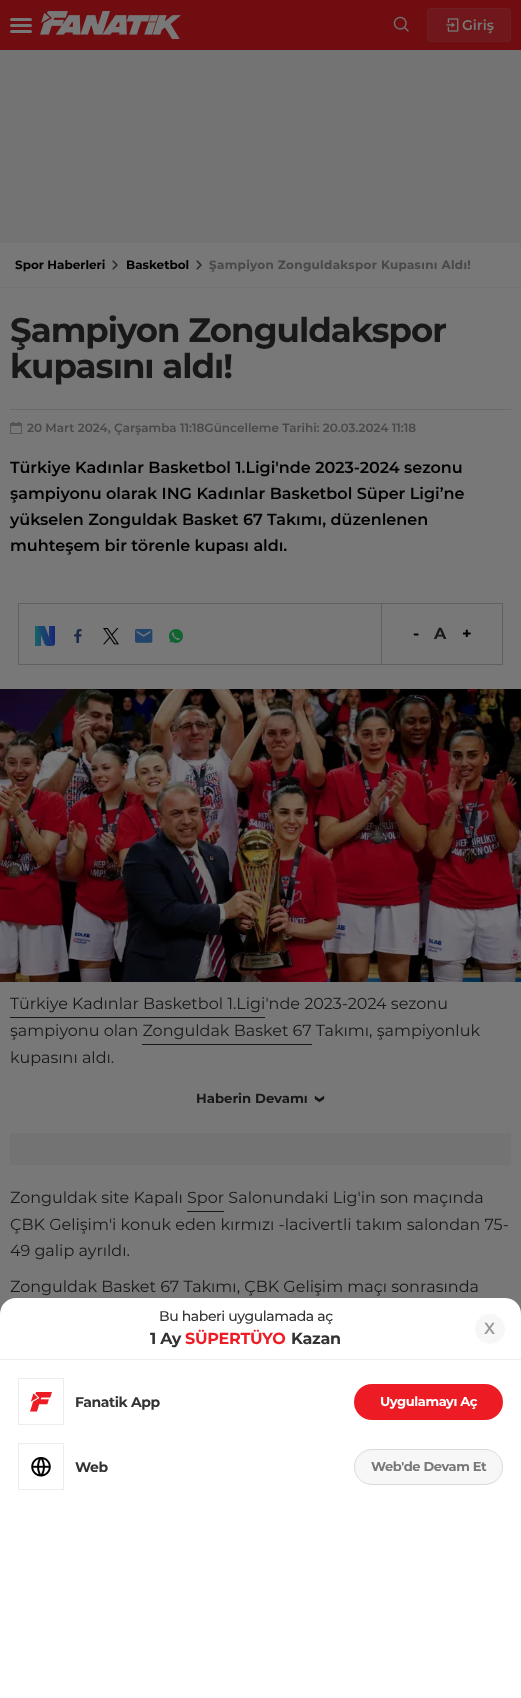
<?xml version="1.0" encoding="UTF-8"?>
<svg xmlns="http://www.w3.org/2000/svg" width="521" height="1698">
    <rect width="100%" height="100%" fill="#737373"/>
    <rect x="0" y="0" width="521" height="50" fill="#6F0D11"/>
    <rect x="10" y="18" width="22" height="3" rx="1.5" fill="#787878"/>
    <rect x="10" y="24" width="22" height="3" rx="1.5" fill="#787878"/>
    <rect x="10" y="30" width="22" height="3" rx="1.5" fill="#787878"/>
    <image x="40" y="11" width="141" height="28" href="img_01.png"/>
    <image x="393" y="16" width="16" height="16" href="img_02.png"/>
    <rect x="427" y="8" width="84" height="34" rx="4" fill="#6F171A"/>
    <rect x="427.5" y="8.5" width="83" height="33" rx="3.5" fill="none" stroke="#6C6C6C" stroke-opacity="0.1"/>
    <image x="446" y="18" width="13" height="14" href="img_03.png"/>
    <text x="462" y="30" font-family="Montserrat" font-size="14" font-weight="600" fill="#787878">Giriş</text>
    <rect x="0" y="243" width="521" height="1071" fill="#787878"/>
    <rect x="0" y="287" width="521" height="1" fill="#727272"/>
    <text x="15" y="269" font-family="Montserrat" font-size="12" font-weight="700" fill="#000000">Spor Haberleri</text>
    <image x="112" y="260" width="6" height="10" href="img_04.png"/>
    <text x="126" y="269" font-family="Montserrat" font-size="12" font-weight="700" fill="#000000">Basketbol</text>
    <image x="196" y="260" width="6" height="10" href="img_04.png"/>
    <text x="209" y="269" font-family="Montserrat" font-size="12" font-weight="700" letter-spacing="0.3" fill="#484848">Şampiyon Zonguldakspor Kupasını Aldı!</text>
    <text font-family="Montserrat" font-size="34" font-weight="700" letter-spacing="-1" fill="#181818">
        <tspan x="10" y="342">Şampiyon Zonguldakspor</tspan>
        <tspan x="10" y="378">kupasını aldı!</tspan>
    </text>
    <rect x="10" y="409" width="501" height="1" fill="#6B6B6B"/>
    <image x="10" y="422" width="12" height="12" href="img_05.png"/>
    <text x="27" y="432" font-family="Montserrat" font-size="12" font-weight="600" fill="#484848">20 Mart 2024, Çarşamba 11:18Güncelleme Tarihi: 20.03.2024 11:18</text>
    <text font-family="Montserrat" font-size="16" font-weight="600" fill="#000000">
        <tspan x="10" y="473">Türkiye Kadınlar Basketbol 1.Ligi'nde 2023-2024 sezonu</tspan>
        <tspan x="10" y="499">şampiyonu olarak ING Kadınlar Basketbol Süper Ligi’ne</tspan>
        <tspan x="10" y="525">yükselen Zonguldak Basket 67 Takımı, düzenlenen</tspan>
        <tspan x="10" y="551">muhteşem bir törenle kupası aldı.</tspan>
    </text>
    <rect x="18.5" y="603.5" width="484" height="61" fill="none" stroke="#606060"/>
    <image x="35" y="626" width="20" height="20" href="img_06.png"/>
    <image x="74" y="629" width="8" height="14" href="img_07.png"/>
    <image x="103" y="628" width="16" height="17" href="img_08.png"/>
    <image x="135" y="629" width="18" height="14" href="img_09.png"/>
    <image x="169" y="629" width="14" height="14" href="img_10.png"/>
    <rect x="381" y="604" width="1" height="60" fill="#606060"/>
    <text x="413" y="639" font-family="Montserrat" font-size="16" font-weight="700" fill="#000000">-</text>
    <text x="434" y="639" font-family="Montserrat" font-size="16" font-weight="700" fill="#181818">A</text>
    <text x="462" y="639" font-family="Montserrat" font-size="16" font-weight="700" fill="#000000">+</text>
    <image x="0" y="689" width="521" height="293" href="img_11.png"/>
    <rect x="10" y="1017" width="255" height="1" fill="#181818"/>
    <text font-family="Montserrat" font-size="16" fill="#181818">
        <tspan x="10" y="1009">Türkiye Kadınlar Basketbol 1.Ligi'nde 2023-2024 sezonu</tspan>
        <tspan x="10" y="1036">şampiyonu olan Zonguldak Basket 67 Takımı, şampiyonluk</tspan>
    </text>
    <rect x="142" y="1044" width="170" height="1" fill="#181818"/>
    <text x="10" y="1063" font-family="Montserrat" font-size="16" fill="#181818">kupasını aldı.</text>
    <text x="196" y="1103" font-family="Montserrat" font-size="13.25" font-weight="700" fill="#181818">Haberin Devamı</text>
    <text x="313" y="1095" transform="rotate(90 313 1095)" font-family="Montserrat" font-size="24" font-weight="700" fill="#181818">›</text>
    <rect x="10" y="1133" width="501" height="32" fill="#737373"/>
    <text x="10" y="1203" font-family="Montserrat" font-size="16" fill="#181818">Zonguldak site Kapalı Spor Salonundaki Lig'in son maçında</text>
    <rect x="187" y="1211" width="37" height="1" fill="#181818"/>
    <text font-family="Montserrat" font-size="16" fill="#181818">
        <tspan x="10" y="1230">ÇBK Gelişim'i konuk eden kırmızı -lacivertli takım salondan 75-</tspan>
        <tspan x="10" y="1256">49 galip ayrıldı.</tspan>
    </text>
    <text x="10" y="1292" font-family="Montserrat" font-size="16" fill="#181818">Zonguldak Basket 67 Takımı, ÇBK Gelişim maçı sonrasında</text>
    <path d="M 16 1298 H 505 C 514 1298 521 1305 521 1314 V 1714 H 0 V 1314 C 0 1305 7 1298 16 1298 Z" fill="#FFFFFF"/>
    <rect x="0" y="1359" width="521" height="1" fill="#EDEDED"/>
    <text x="159" y="1321" font-family="Montserrat" font-size="14" font-weight="500" letter-spacing="-0.4" fill="#333333">Bu haberi uygulamada aç</text>
    <text x="150" y="1344" font-family="Montserrat" font-size="16" font-weight="700" letter-spacing="-0.25" fill="#333333">1 Ay</text>
    <text x="185" y="1344" font-family="Montserrat" font-size="16" font-weight="700" letter-spacing="-0.25" fill="#EE1D25">SÜPERTÜYO</text>
    <text x="291" y="1344" font-family="Montserrat" font-size="16" font-weight="700" letter-spacing="-0.25" fill="#333333">Kazan</text>
    <circle cx="490" cy="1329" r="15" fill="#F7F7F7"/>
    <text x="484" y="1334" font-family="Montserrat" font-size="16" font-weight="600" fill="#9A9A9D">X</text>
    <rect x="18.5" y="1378.5" width="45" height="46" fill="none" stroke="#EDEDED"/>
    <image x="30" y="1392" width="22" height="20" href="img_12.png"/>
    <text x="75" y="1407" font-family="Montserrat" font-size="14" font-weight="700" letter-spacing="-0.4" fill="#333333">Fanatik App</text>
    <rect x="354" y="1384" width="149" height="36" rx="18" fill="#ED1C24"/>
    <text x="380" y="1406" font-family="Montserrat" font-size="13" font-weight="700" letter-spacing="-0.4" fill="#FFFFFF">Uygulamayı Aç</text>
    <rect x="18.5" y="1443.5" width="45" height="46" fill="none" stroke="#EDEDED"/>
    <image x="31" y="1457" width="20" height="20" href="img_13.png"/>
    <text x="75" y="1472" font-family="Montserrat" font-size="14" font-weight="700" letter-spacing="-0.4" fill="#333333">Web</text>
    <rect x="354.5" y="1449.5" width="148" height="35" rx="17.5" fill="#F7F7F7" stroke="#DAD9DC"/>
    <text x="371" y="1471" font-family="Montserrat" font-size="13" font-weight="700" letter-spacing="-0.4" fill="#787878">Web'de Devam Et</text>
</svg>
